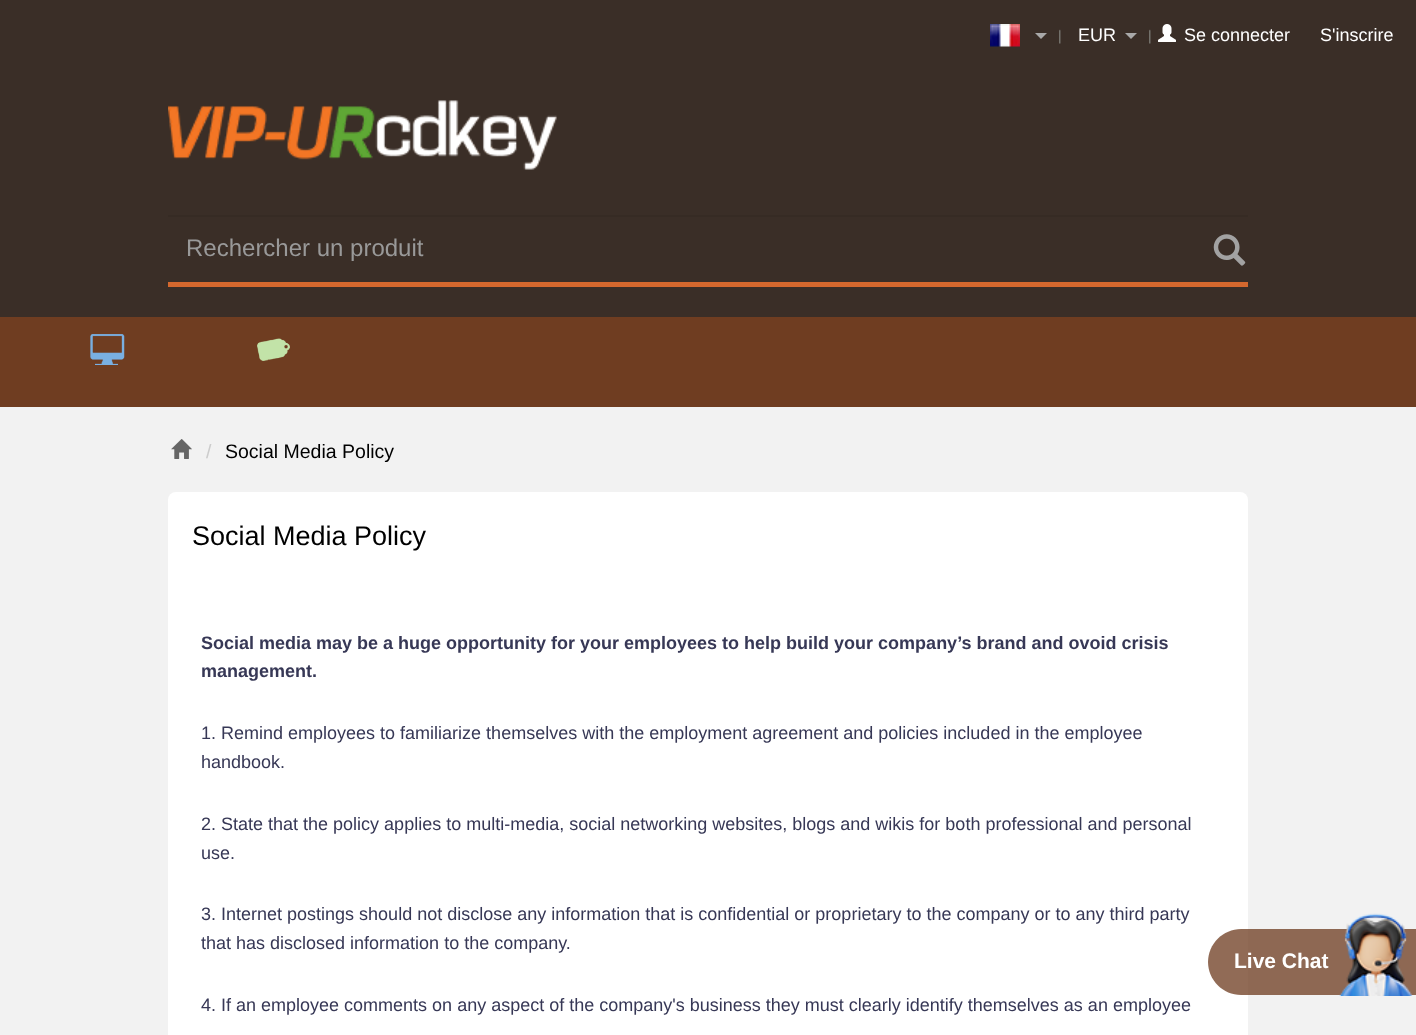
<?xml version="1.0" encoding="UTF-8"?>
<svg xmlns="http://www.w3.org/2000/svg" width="1416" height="1035">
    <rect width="100%" height="100%" fill="#F2F2F2"/>
    <rect x="0" y="0" width="1416" height="317" fill="#3A2E27"/>
    <image x="1059" y="29" width="2" height="15" href="img_01.png"/>
    <image x="990" y="24" width="30" height="23" href="img_02.png"/>
    <path d="M 1035 33 H 1047 L 1041 39 Z" fill="#A9A9A9"/>
    <image x="1149" y="29" width="2" height="15" href="img_01.png"/>
    <text x="1078" y="41" font-family="Liberation Sans" font-size="18" fill="#FFFFFF">EUR</text>
    <path d="M 1125 33 H 1137 L 1131 39 Z" fill="#A9A9A9"/>
    <image x="1158" y="24" width="18" height="18" href="img_03.png"/>
    <text x="1184" y="41" font-family="Liberation Sans" font-size="18" fill="#FFFFFF">Se connecter</text>
    <text x="1320" y="41" font-family="Liberation Sans" font-size="18" fill="#FFFFFF">S'inscrire</text>
    <image x="168" y="100" width="389" height="70" href="img_04.png"/>
    <rect x="168" y="215" width="1080" height="2" fill="#362B24"/>
    <rect x="168" y="282" width="1080" height="5" fill="#D4682E"/>
    <text x="186" y="256" font-family="Liberation Sans" font-size="24" fill="#999999">Rechercher un produit</text>
    <image x="1213" y="234" width="33" height="32" href="img_05.png"/>
    <rect x="0" y="317" width="1416" height="90" fill="#6F3D21"/>
    <image x="90" y="334" width="35" height="31" href="img_06.png"/>
    <image x="257" y="338" width="33" height="23" href="img_07.png"/>
    <image x="171" y="439" width="21" height="20" href="img_08.png"/>
    <text x="206" y="458" font-family="Liberation Sans" font-size="19.5" fill="#CCCCCC">/</text>
    <text x="225" y="458" font-family="Liberation Sans" font-size="19.5" fill="#000000">Social Media Policy</text>
    <rect x="168" y="492" width="1080" height="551" rx="8" fill="#FFFFFF"/>
    <text x="192" y="545" font-family="Liberation Sans" font-size="27" fill="#000000">Social Media Policy</text>
    <text font-family="Liberation Sans" font-size="18" font-weight="700" fill="#373856">
        <tspan x="201" y="649">Social media may be a huge opportunity for your employees to help build your company’s brand and ovoid crisis</tspan>
        <tspan x="201" y="677">management.</tspan>
    </text>
    <text font-family="Liberation Sans" font-size="18" fill="#373856">
        <tspan x="201" y="739">1. Remind employees to familiarize themselves with the employment agreement and policies included in the employee</tspan>
        <tspan x="201" y="768">handbook.</tspan>
    </text>
    <text font-family="Liberation Sans" font-size="18" fill="#373856">
        <tspan x="201" y="830">2. State that the policy applies to multi-media, social networking websites, blogs and wikis for both professional and personal</tspan>
        <tspan x="201" y="859">use.</tspan>
    </text>
    <text font-family="Liberation Sans" font-size="18" fill="#373856">
        <tspan x="201" y="920">3. Internet postings should not disclose any information that is confidential or proprietary to the company or to any third party</tspan>
        <tspan x="201" y="949">that has disclosed information to the company.</tspan>
    </text>
    <text x="201" y="1011" font-family="Liberation Sans" font-size="18" fill="#373856">4. If an employee comments on any aspect of the company's business they must clearly identify themselves as an employee</text>
    <path d="M 1241 929 H 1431 V 995 H 1241 C 1223 995 1208 980 1208 962 C 1208 944 1223 929 1241 929 Z" fill="#6F3D21" fill-opacity="0.76"/>
    <text x="1234" y="968" font-family="Liberation Sans" font-size="21" font-weight="700" fill="#FFFFFF">Live Chat</text>
    <image x="1339" y="913" width="74" height="83" href="img_09.png"/>
</svg>
